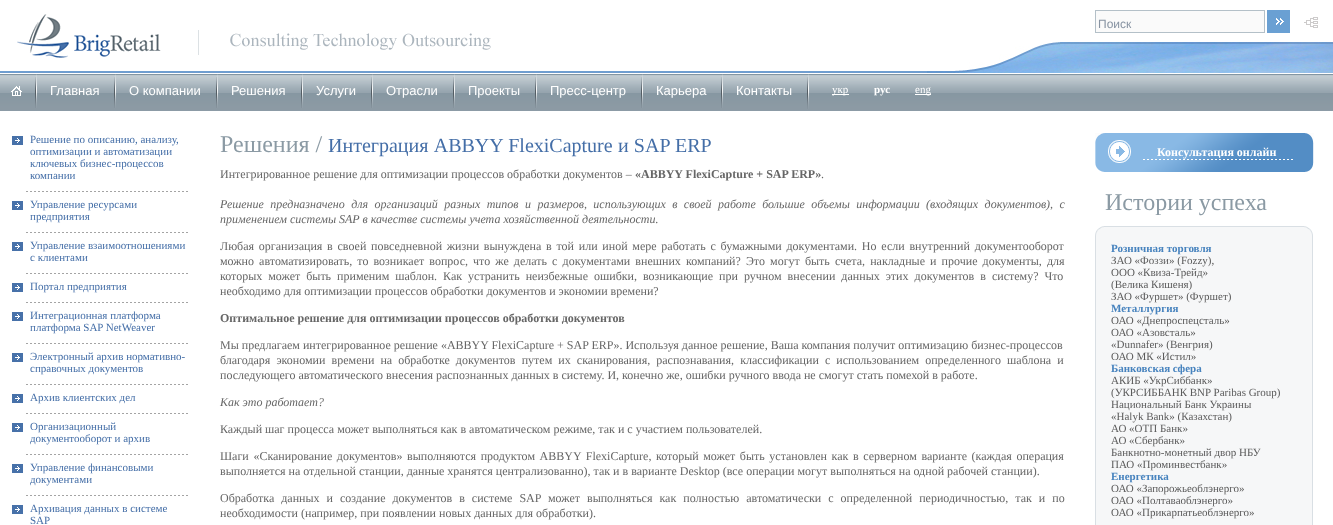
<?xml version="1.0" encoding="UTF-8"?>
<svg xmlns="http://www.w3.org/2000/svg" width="1333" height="525">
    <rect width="100%" height="100%" fill="#FFFFFF"/>
    <image x="0" y="71" width="927" height="2" href="img_01.png"/>
    <image x="17" y="14" width="144" height="44" href="img_02.png"/>
    <image x="927" y="42" width="406" height="31" href="img_03.png"/>
    <rect x="1095.5" y="10.5" width="169" height="22" fill="#FAFAFA" stroke="#B4C0C8"/>
    <text x="1098" y="28" font-family="Liberation Sans" font-size="12" fill="#8793A2">Поиск</text>
    <image x="1267" y="10" width="23" height="23" href="img_04.png"/>
    <image x="1304" y="17" width="14" height="11" href="img_05.png"/>
    <image x="198" y="30" width="293" height="25" href="img_06.png"/>
    <image x="0" y="74" width="1333" height="37" href="img_07.png"/>
    <image x="11" y="86" width="11" height="10" href="img_08.png"/>
    <image x="35" y="74" width="2" height="34" href="img_09.png"/>
    <text x="50" y="95" font-family="Liberation Sans" font-size="13" fill="#FFFFFF">Главная</text>
    <image x="114" y="74" width="2" height="34" href="img_09.png"/>
    <text x="129" y="95" font-family="Liberation Sans" font-size="13" fill="#FFFFFF">О компании</text>
    <image x="216" y="74" width="2" height="34" href="img_09.png"/>
    <text x="231" y="95" font-family="Liberation Sans" font-size="13" fill="#FFFFFF">Решения</text>
    <image x="301" y="74" width="2" height="34" href="img_09.png"/>
    <text x="316" y="95" font-family="Liberation Sans" font-size="13" fill="#FFFFFF">Услуги</text>
    <image x="371" y="74" width="2" height="34" href="img_09.png"/>
    <text x="386" y="95" font-family="Liberation Sans" font-size="13" fill="#FFFFFF">Отрасли</text>
    <image x="453" y="74" width="2" height="34" href="img_09.png"/>
    <text x="468" y="95" font-family="Liberation Sans" font-size="13" fill="#FFFFFF">Проекты</text>
    <image x="535" y="74" width="2" height="34" href="img_09.png"/>
    <text x="550" y="95" font-family="Liberation Sans" font-size="13" fill="#FFFFFF">Пресс-центр</text>
    <image x="641" y="74" width="2" height="34" href="img_09.png"/>
    <text x="656" y="95" font-family="Liberation Sans" font-size="13" fill="#FFFFFF">Карьера</text>
    <image x="721" y="74" width="2" height="34" href="img_09.png"/>
    <text x="736" y="95" font-family="Liberation Sans" font-size="13" fill="#FFFFFF">Контакты</text>
    <image x="807" y="74" width="2" height="35" href="img_10.png"/>
    <rect x="832" y="94" width="17" height="1" fill="#FFFFFF"/>
    <text x="832" y="93" font-family="Liberation Serif" font-size="11" fill="#FFFFFF">укр</text>
    <text x="874" y="93" font-family="Liberation Serif" font-size="11" font-weight="700" fill="#FFFFFF">рус</text>
    <rect x="915" y="94" width="16" height="1" fill="#FFFFFF"/>
    <text x="915" y="93" font-family="Liberation Serif" font-size="11" fill="#FFFFFF">eng</text>
    <image x="0" y="131" width="23" height="14" href="img_11.png"/>
    <text font-family="Liberation Serif" font-size="11" fill="#446EA7">
        <tspan x="30" y="143">Решение по описанию, анализу,</tspan>
        <tspan x="30" y="155">оптимизации и автоматизации</tspan>
        <tspan x="30" y="167">ключевых бизнес-процессов</tspan>
        <tspan x="30" y="179">компании</tspan>
    </text>
    <image x="0" y="191" width="188" height="19" href="img_12.png"/>
    <text font-family="Liberation Serif" font-size="11" fill="#446EA7">
        <tspan x="30" y="208">Управление ресурсами</tspan>
        <tspan x="30" y="220">предприятия</tspan>
    </text>
    <image x="0" y="232" width="188" height="19" href="img_12.png"/>
    <text font-family="Liberation Serif" font-size="11" fill="#446EA7">
        <tspan x="30" y="249">Управление взаимоотношениями</tspan>
        <tspan x="30" y="261">с клиентами</tspan>
    </text>
    <image x="0" y="273" width="188" height="19" href="img_12.png"/>
    <text x="30" y="290" font-family="Liberation Serif" font-size="11" fill="#446EA7">Портал предприятия</text>
    <image x="0" y="302" width="188" height="19" href="img_12.png"/>
    <text font-family="Liberation Serif" font-size="11" fill="#446EA7">
        <tspan x="30" y="319">Интеграционная платформа</tspan>
        <tspan x="30" y="331">платформа SAP NetWeaver</tspan>
    </text>
    <image x="0" y="343" width="188" height="19" href="img_12.png"/>
    <text font-family="Liberation Serif" font-size="11" fill="#446EA7">
        <tspan x="30" y="360">Электронный архив нормативно-</tspan>
        <tspan x="30" y="372">справочных документов</tspan>
    </text>
    <image x="0" y="384" width="188" height="19" href="img_12.png"/>
    <text x="30" y="401" font-family="Liberation Serif" font-size="11" fill="#446EA7">Архив клиентских дел</text>
    <image x="0" y="413" width="188" height="19" href="img_12.png"/>
    <text font-family="Liberation Serif" font-size="11" fill="#446EA7">
        <tspan x="30" y="430">Организационный</tspan>
        <tspan x="30" y="442">документооборот и архив</tspan>
    </text>
    <image x="0" y="454" width="188" height="19" href="img_12.png"/>
    <text font-family="Liberation Serif" font-size="11" fill="#446EA7">
        <tspan x="30" y="471">Управление финансовыми</tspan>
        <tspan x="30" y="483">документами</tspan>
    </text>
    <image x="0" y="495" width="188" height="19" href="img_12.png"/>
    <text font-family="Liberation Serif" font-size="11" fill="#446EA7">
        <tspan x="30" y="512">Архивация данных в системе</tspan>
        <tspan x="30" y="524">SAP</tspan>
    </text>
    <text x="220" y="152" font-family="Liberation Serif" font-size="24" fill="#8B9AA4">Решения /</text>
    <text x="328" y="152" word-spacing="0.25" font-family="Liberation Serif" font-size="20" fill="#446EA7">Интеграция ABBYY FlexiCapture и SAP ERP</text>
    <text x="220" y="178" font-family="Liberation Serif" font-size="12" fill="#666666">Интегрированное решение для оптимизации процессов обработки документов –</text>
    <text x="635" y="178" font-family="Liberation Serif" font-size="12" font-weight="700" fill="#666666">«ABBYY FlexiCapture + SAP ERP»</text>
    <text x="821" y="178" font-family="Liberation Serif" font-size="12" fill="#666666">.</text>
    <text font-family="Liberation Serif" font-size="12" font-style="italic" fill="#666666">
        <tspan x="220" y="208" word-spacing="3.4">Решение предназначено для организаций разных типов и размеров, использующих в своей работе большие объемы информации (входящих документов), с</tspan>
        <tspan x="220" y="223">применением системы SAP в качестве системы учета хозяйственной деятельности.</tspan>
    </text>
    <text font-family="Liberation Serif" font-size="12" fill="#666666">
        <tspan x="220" y="250" word-spacing="1.75">Любая организация в своей повседневной жизни вынуждена в той или иной мере работать с бумажными документами. Но если внутренний документооборот</tspan>
        <tspan x="220" y="265" word-spacing="2.1">можно автоматизировать, то возникает вопрос, что же делать с документами внешних компаний? Это могут быть счета, накладные и прочие документы, для</tspan>
        <tspan x="220" y="280" word-spacing="3">которых может быть применим шаблон. Как устранить неизбежные ошибки, возникающие при ручном внесении данных этих документов в систему? Что</tspan>
        <tspan x="220" y="295">необходимо для оптимизации процессов обработки документов и экономии времени?</tspan>
    </text>
    <text x="220" y="322" font-family="Liberation Serif" font-size="12" font-weight="700" fill="#666666">Оптимальное решение для оптимизации процессов обработки документов</text>
    <text font-family="Liberation Serif" font-size="12" fill="#666666">
        <tspan x="220" y="349">Мы предлагаем интегрированное решение «ABBYY FlexiCapture + SAP ERP». Используя данное решение, Ваша компания получит оптимизацию бизнес-процессов</tspan>
        <tspan x="220" y="364" word-spacing="3.1">благодаря экономии времени на обработке документов путем их сканирования, распознавания, классификации с использованием определенного шаблона и</tspan>
        <tspan x="220" y="379">последующего автоматического внесения распознанных данных в систему. И, конечно же, ошибки ручного ввода не смогут стать помехой в работе.</tspan>
    </text>
    <text x="220" y="406" font-family="Liberation Serif" font-size="12" font-style="italic" fill="#666666">Как это работает?</text>
    <text x="220" y="433" font-family="Liberation Serif" font-size="12" fill="#666666">Каждый шаг процесса может выполняться как в автоматическом режиме, так и с участием пользователей.</text>
    <text font-family="Liberation Serif" font-size="12" fill="#666666">
        <tspan x="220" y="460" word-spacing="1.6">Шаги «Сканирование документов» выполняются продуктом ABBYY FlexiCapture, который может быть установлен как в серверном варианте (каждая операция</tspan>
        <tspan x="220" y="475">выполняется на отдельной станции, данные хранятся централизованно), так и в варианте Desktop (все операции могут выполняться на одной рабочей станции).</tspan>
    </text>
    <text font-family="Liberation Serif" font-size="12" fill="#666666">
        <tspan x="220" y="502" word-spacing="4">Обработка данных и создание документов в системе SAP может выполняться как полностью автоматически с определенной периодичностью, так и по</tspan>
        <tspan x="220" y="517">необходимости (например, при появлении новых данных для обработки).</tspan>
    </text>
    <image x="1095" y="133" width="219" height="39" href="img_13.png"/>
    <text x="1157" y="156" font-family="Liberation Serif" font-size="12" font-weight="700" fill="#FFFFFF">Консультация онлайн</text>
    <text x="1105" y="210" font-family="Liberation Serif" font-size="24" fill="#8B9AA4">Истории успеха</text>
    <image x="1095" y="226" width="218" height="11" href="img_14.png"/>
    <rect x="1096" y="237" width="216" height="288" fill="#F6F7F8"/>
    <rect x="1312" y="237" width="1" height="288" fill="#D9DFE4"/>
    <rect x="1095" y="237" width="1" height="288" fill="#D9DFE4"/>
    <text x="1111" y="252" font-family="Liberation Serif" font-size="11" font-weight="700" fill="#4783BE">Розничная торговля</text>
    <text font-family="Liberation Serif" font-size="11" fill="#5B5B5B">
        <tspan x="1111" y="264">ЗАО «Фоззи» (Fozzy),</tspan>
        <tspan x="1111" y="276">ООО «Квиза-Трейд»</tspan>
        <tspan x="1111" y="288">(Велика Кишеня)</tspan>
        <tspan x="1111" y="300">ЗАО «Фуршет» (Фуршет)</tspan>
    </text>
    <text x="1111" y="312" font-family="Liberation Serif" font-size="11" font-weight="700" fill="#4783BE">Металлургия</text>
    <text font-family="Liberation Serif" font-size="11" fill="#5B5B5B">
        <tspan x="1111" y="324">ОАО «Днепроспецсталь»</tspan>
        <tspan x="1111" y="336">ОАО «Азовсталь»</tspan>
        <tspan x="1111" y="348">«Dunnafer» (Венгрия)</tspan>
        <tspan x="1111" y="360">ОАО МК «Истил»</tspan>
    </text>
    <text x="1111" y="372" font-family="Liberation Serif" font-size="11" font-weight="700" fill="#4783BE">Банковская сфера</text>
    <text font-family="Liberation Serif" font-size="11" fill="#5B5B5B">
        <tspan x="1111" y="384">АКИБ «УкрСиббанк»</tspan>
        <tspan x="1111" y="396">(УКРСИББАНК BNP Paribas Group)</tspan>
        <tspan x="1111" y="408">Национальный Банк Украины</tspan>
        <tspan x="1111" y="420">«Halyk Bank» (Казахстан)</tspan>
        <tspan x="1111" y="432">АО «ОТП Банк»</tspan>
        <tspan x="1111" y="444">АО «Сбербанк»</tspan>
        <tspan x="1111" y="456">Банкнотно-монетный двор НБУ</tspan>
        <tspan x="1111" y="468">ПАО «Проминвестбанк»</tspan>
    </text>
    <text x="1111" y="480" font-family="Liberation Serif" font-size="11" font-weight="700" fill="#4783BE">Енергетика</text>
    <text font-family="Liberation Serif" font-size="11" fill="#5B5B5B">
        <tspan x="1111" y="492">ОАО «Запорожьеоблэнерго»</tspan>
        <tspan x="1111" y="504">ОАО «Полтаваоблэнерго»</tspan>
        <tspan x="1111" y="516">ОАО «Прикарпатьеоблэнерго»</tspan>
    </text>
</svg>
